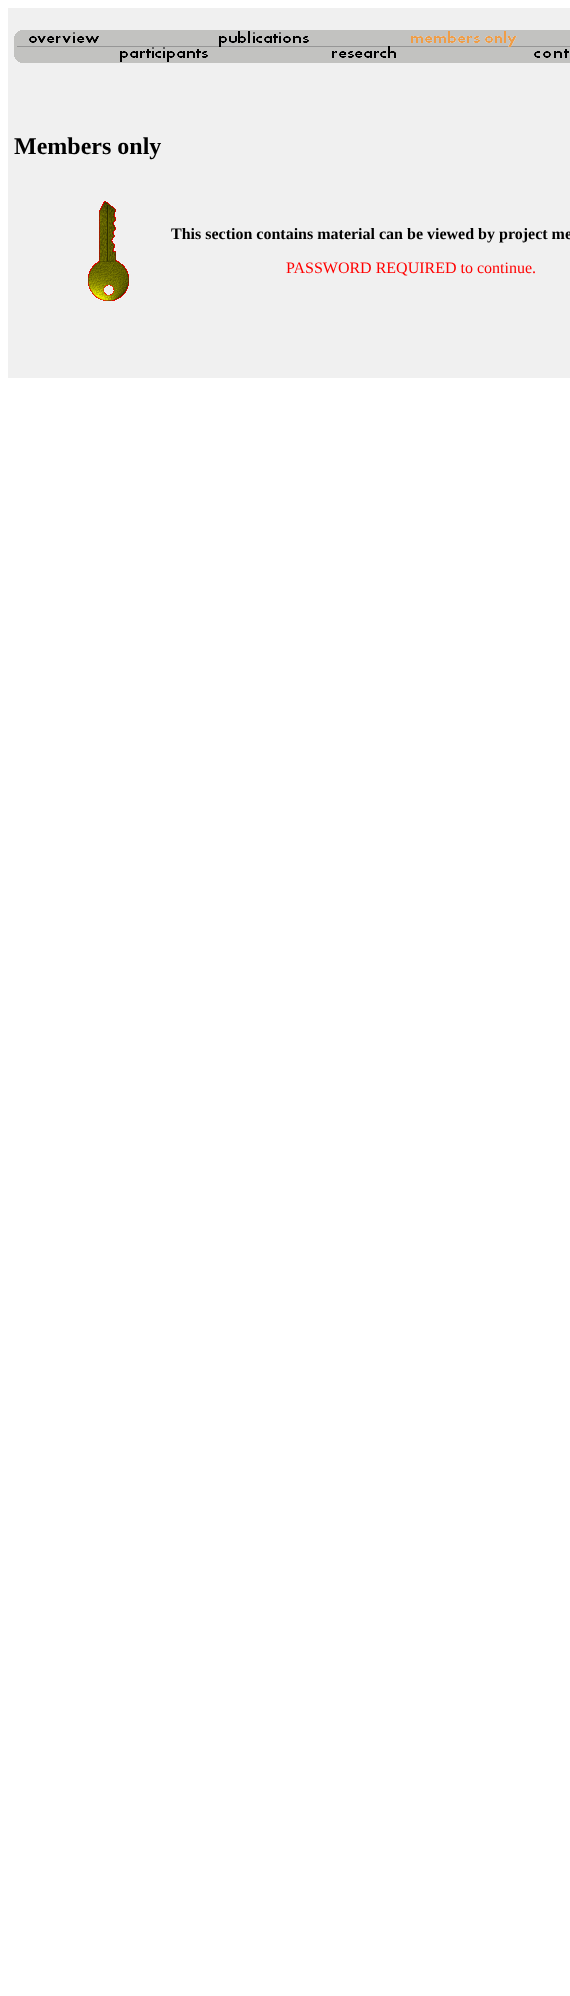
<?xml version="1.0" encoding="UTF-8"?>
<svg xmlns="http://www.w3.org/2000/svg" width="570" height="1996">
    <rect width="100%" height="100%" fill="#FFFFFF"/>
    <rect x="8" y="8" width="562" height="370" fill="#F0F0F0"/>
    <image x="14" y="30" width="100" height="33" href="img_01.png"/>
    <image x="114" y="30" width="100" height="33" href="img_02.png"/>
    <image x="214" y="30" width="100" height="33" href="img_03.png"/>
    <image x="314" y="30" width="90" height="33" href="img_04.png"/>
    <image x="404" y="30" width="120" height="33" href="img_05.png"/>
    <image x="524" y="30" width="46" height="33" href="img_06.png"/>
    <text x="14" y="154" font-family="Liberation Serif" font-size="24" font-weight="700" fill="#000000">Members only</text>
    <image x="88" y="201" width="41" height="100" href="img_07.png"/>
    <text x="171" y="239" font-family="Liberation Serif" font-size="16" font-weight="700" fill="#000000">This section contains material can be viewed by project me</text>
    <text x="286" y="273" font-family="Liberation Serif" font-size="16" fill="#FF0000">PASSWORD REQUIRED to continue.</text>
</svg>
